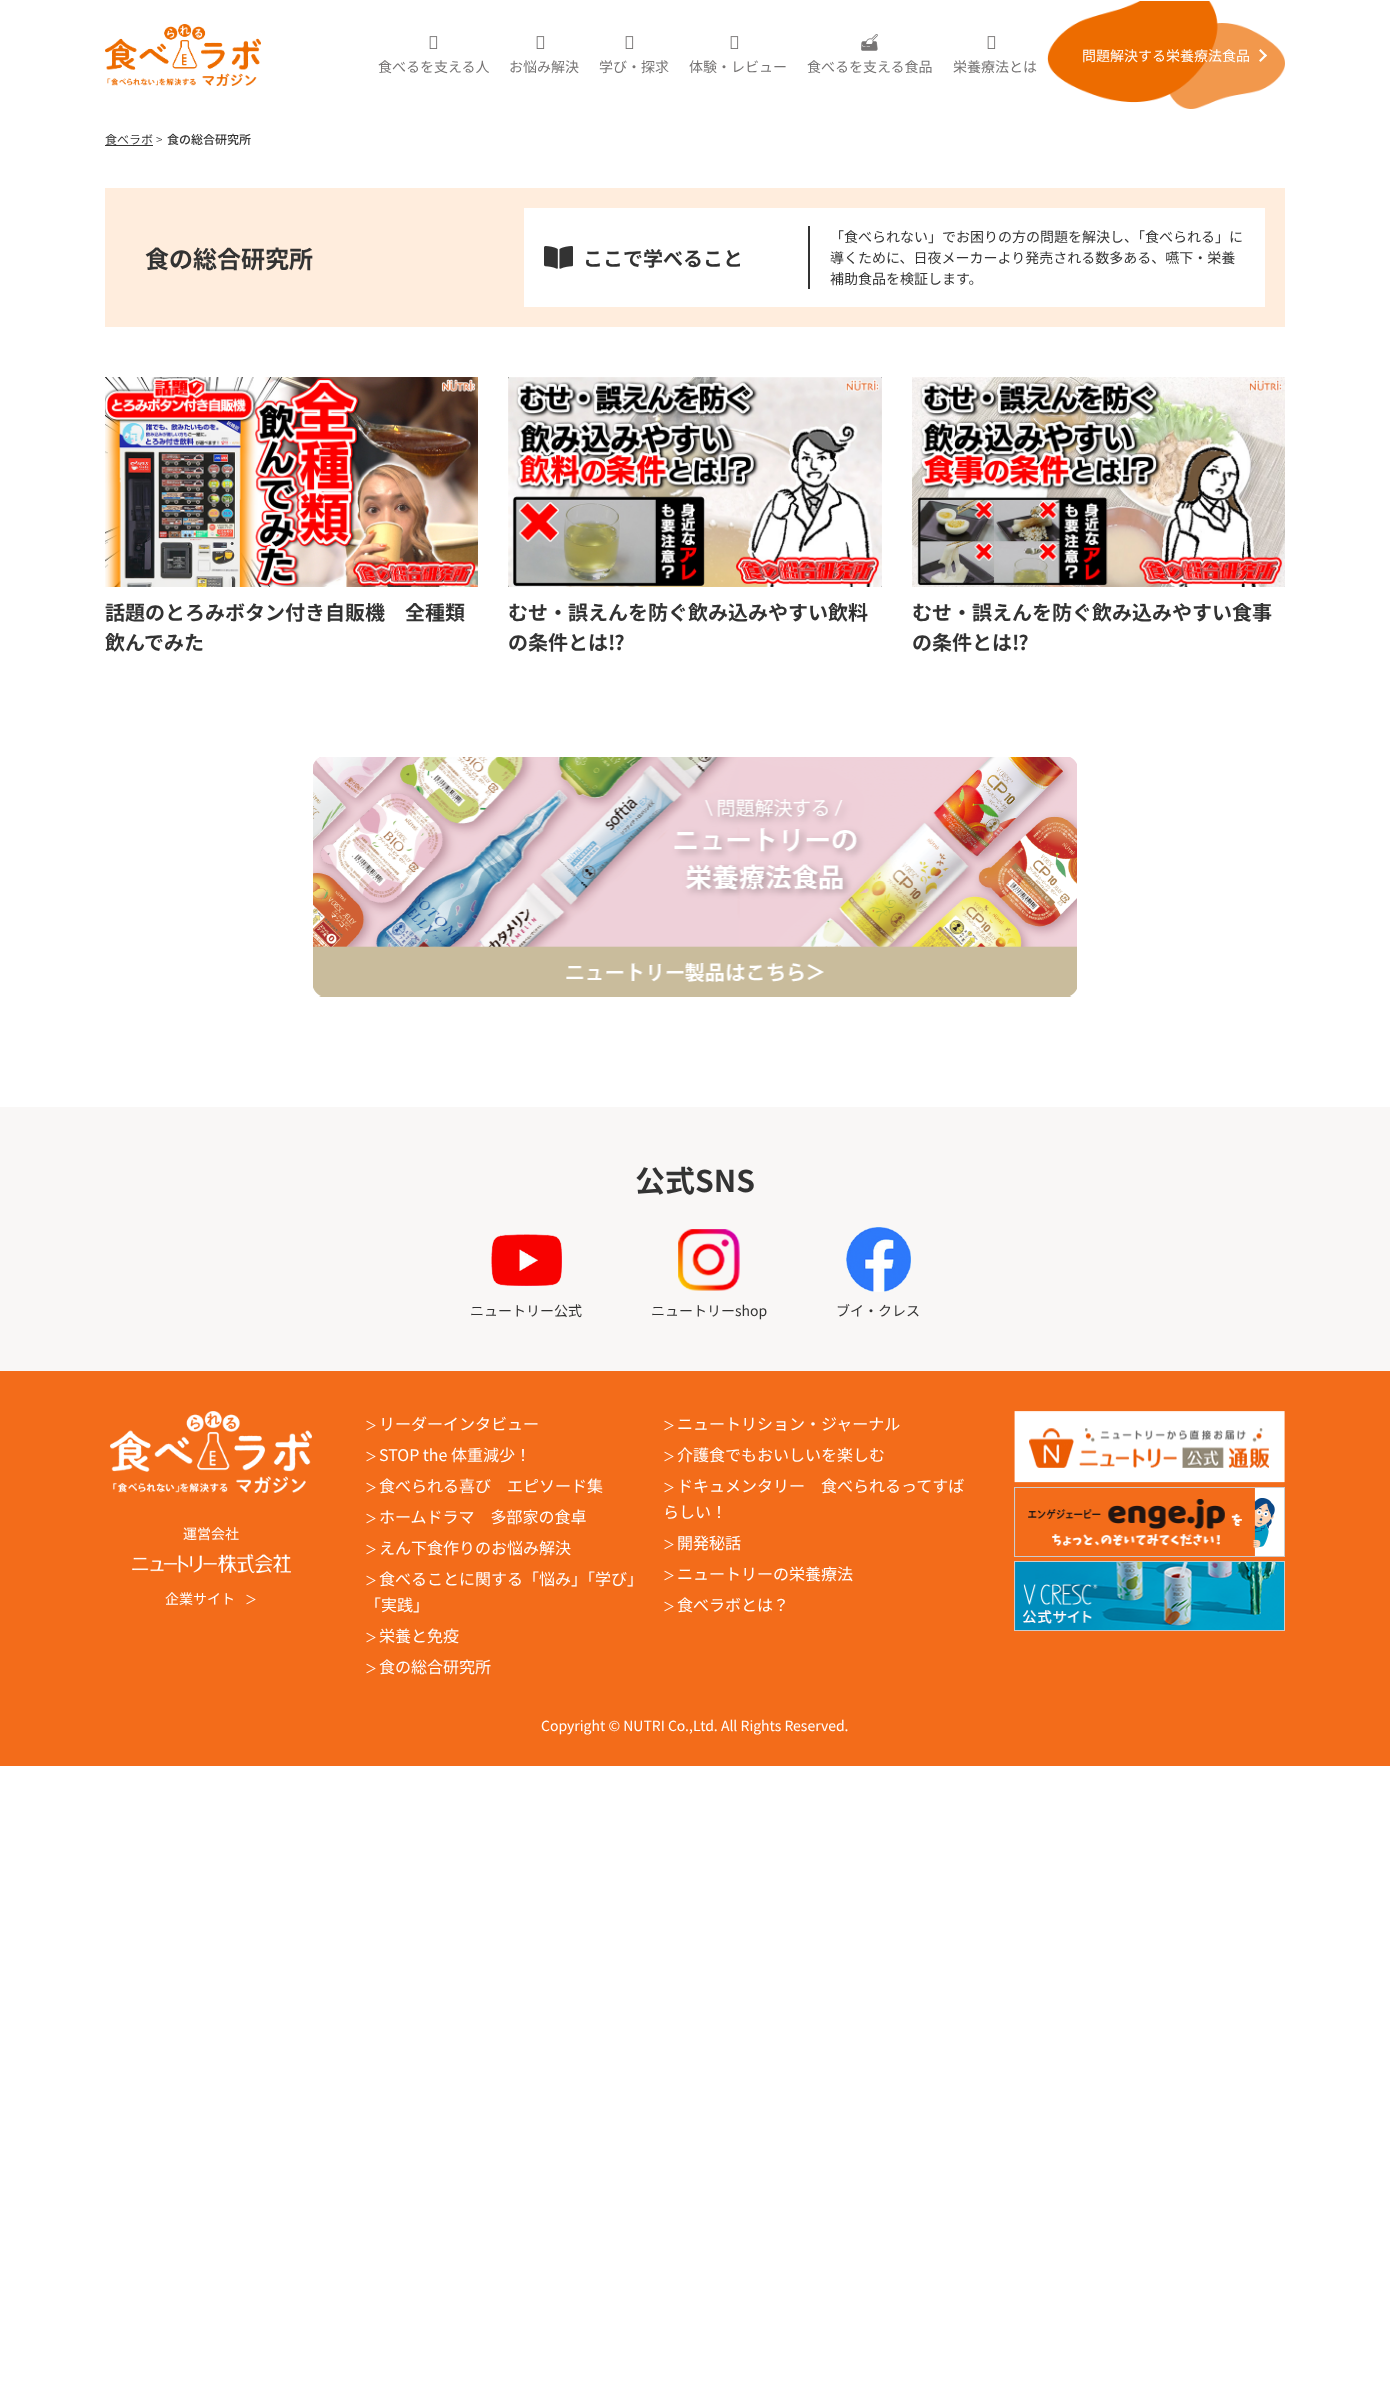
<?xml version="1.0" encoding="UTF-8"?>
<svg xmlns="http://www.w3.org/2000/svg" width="1390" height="2401">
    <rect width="100%" height="100%" fill="#FFFFFF"/>
    <image x="105" y="24" width="156" height="62" href="img_01.png"/>
    <image x="1047" y="1" width="238" height="108" href="img_02.png"/>
    <text x="1082" y="61" font-family="Noto Sans JP" font-size="14" fill="#FFFFFF">問題解決する栄養療法⾷品</text>
    <path d="M 1260.5 49 L 1267 55.5 L 1265.5 57 L 1259 50.5 Z" fill="#FFFFFF"/>
    <path d="M 1265.5 54 L 1267 55.5 L 1260.5 62 L 1259 60.5 Z" fill="#FFFFFF"/>
    <image x="429" y="36" width="9" height="13" href="img_03.png"/>
    <text x="378" y="72" font-family="Noto Sans JP" font-size="14" fill="#767474">食べるを支える人</text>
    <image x="536" y="36" width="9" height="13" href="img_03.png"/>
    <text x="509" y="72" font-family="Noto Sans JP" font-size="14" fill="#767474">お悩み解決</text>
    <image x="625" y="36" width="9" height="13" href="img_03.png"/>
    <text x="599" y="72" font-family="Noto Sans JP" font-size="14" fill="#767474">学び・探求</text>
    <image x="730" y="36" width="9" height="13" href="img_03.png"/>
    <text x="689" y="72" font-family="Noto Sans JP" font-size="14" fill="#767474">体験・レビュー</text>
    <image x="861" y="34" width="17" height="17" href="img_04.png"/>
    <text x="807" y="72" font-family="Noto Sans JP" font-size="14" fill="#767474">食べるを支える食品</text>
    <image x="987" y="36" width="9" height="13" href="img_03.png"/>
    <text x="953" y="72" font-family="Noto Sans JP" font-size="14" fill="#767474">栄養療法とは</text>
    <text x="105" y="144" font-family="Noto Sans JP" font-size="12" fill="#333333">食べラボ</text>
    <rect x="105" y="145" width="48" height="1" fill="#333333"/>
    <text x="156" y="144" font-family="Noto Sans JP" font-size="12" font-weight="300" fill="#333333">&gt;</text>
    <text x="167" y="144" font-family="Noto Sans JP" font-size="12" font-weight="500" fill="#333333">食の総合研究所</text>
    <rect x="105" y="188" width="1180" height="139" fill="#FFEDDD"/>
    <text x="145" y="268" font-family="Noto Sans JP" font-size="24" font-weight="700" fill="#333333">食の総合研究所</text>
    <rect x="524" y="208" width="741" height="99" fill="#FFFFFF"/>
    <rect x="808" y="226" width="2" height="63" fill="#333333"/>
    <image x="544" y="246" width="29" height="23" href="img_05.png"/>
    <text x="583" y="266" font-family="Noto Sans JP" font-size="20" font-weight="700" fill="#333333">ここで学べること</text>
    <text font-family="Noto Sans JP" font-size="14" fill="#333333">
        <tspan x="830" y="242">「食べられない」でお困りの方の問題を解決し、「食べられる」に</tspan>
        <tspan x="830" y="263">導くために、日夜メーカーより発売される数多ある、嚥下・栄養</tspan>
        <tspan x="830" y="284">補助食品を検証します。</tspan>
    </text>
    <image x="105" y="377" width="373" height="210" href="img_06.png"/>
    <text font-family="Noto Sans JP" font-size="20" font-weight="700" fill="#333333">
        <tspan x="105" y="620">話題のとろみボタン付き自販機　全種類</tspan>
        <tspan x="105" y="650">飲んでみた</tspan>
    </text>
    <image x="508" y="377" width="374" height="210" href="img_07.png"/>
    <text font-family="Noto Sans JP" font-size="20" font-weight="700" fill="#333333">
        <tspan x="508" y="620">むせ・誤えんを防ぐ飲み込みやすい飲料</tspan>
        <tspan x="508" y="650">の条件とは⁉︎</tspan>
    </text>
    <image x="912" y="377" width="373" height="210" href="img_08.png"/>
    <text font-family="Noto Sans JP" font-size="20" font-weight="700" fill="#333333">
        <tspan x="912" y="620">むせ・誤えんを防ぐ飲み込みやすい食事</tspan>
        <tspan x="912" y="650">の条件とは⁉︎</tspan>
    </text>
    <image x="313" y="757" width="764" height="240" href="img_09.png"/>
    <rect x="0" y="1107" width="1390" height="264" fill="#F9F7F6"/>
    <text x="635" y="1192" font-family="Noto Sans JP" font-size="30" font-weight="700" fill="#333333">公式SNS</text>
    <image x="491" y="1234" width="71" height="52" href="img_10.png"/>
    <text x="470" y="1316" font-family="Noto Sans JP" font-size="14" fill="#333333">ニュートリー公式</text>
    <image x="678" y="1229" width="62" height="62" href="img_11.png"/>
    <text x="651" y="1316" font-family="Noto Sans JP" font-size="14" fill="#333333">ニュートリーshop</text>
    <image x="846" y="1227" width="65" height="65" href="img_12.png"/>
    <text x="836" y="1316" font-family="Noto Sans JP" font-size="14" fill="#333333">ブイ・クレス</text>
    <rect x="0" y="1371" width="1390" height="395" fill="#F36C1A"/>
    <image x="110" y="1411" width="202" height="82" href="img_13.png"/>
    <text x="183" y="1539" font-family="Noto Sans JP" font-size="14" fill="#FFFFFF">運営会社</text>
    <image x="132" y="1554" width="159" height="19" href="img_14.png"/>
    <text x="165" y="1604" font-family="Noto Sans JP" font-size="14" fill="#FFFFFF">企業サイト</text>
    <text x="245" y="1604" font-family="Noto Sans JP" font-size="12" fill="#FFFFFF">＞</text>
    <text x="365" y="1430" font-family="Noto Sans JP" font-size="12" fill="#FFFFFF">＞</text>
    <text x="379" y="1430" font-family="Noto Sans JP" font-size="16" fill="#FFFFFF">リーダーインタビュー</text>
    <text x="365" y="1461" font-family="Noto Sans JP" font-size="12" fill="#FFFFFF">＞</text>
    <text x="379" y="1461" font-family="Noto Sans JP" font-size="16" fill="#FFFFFF">STOP the 体重減少！</text>
    <text x="365" y="1492" font-family="Noto Sans JP" font-size="12" fill="#FFFFFF">＞</text>
    <text x="379" y="1492" font-family="Noto Sans JP" font-size="16" fill="#FFFFFF">食べられる喜び　エピソード集</text>
    <text x="365" y="1523" font-family="Noto Sans JP" font-size="12" fill="#FFFFFF">＞</text>
    <text x="379" y="1523" font-family="Noto Sans JP" font-size="16" fill="#FFFFFF">ホームドラマ　多部家の食卓</text>
    <text x="365" y="1554" font-family="Noto Sans JP" font-size="12" fill="#FFFFFF">＞</text>
    <text x="379" y="1554" font-family="Noto Sans JP" font-size="16" fill="#FFFFFF">えん下食作りのお悩み解決</text>
    <text x="365" y="1585" font-family="Noto Sans JP" font-size="12" fill="#FFFFFF">＞</text>
    <text x="379" y="1585" font-family="Noto Sans JP" font-size="16" fill="#FFFFFF">食べることに関する「悩み」「学び」</text>
    <text x="365" y="1611" font-family="Noto Sans JP" font-size="16" fill="#FFFFFF">「実践」</text>
    <text x="365" y="1642" font-family="Noto Sans JP" font-size="12" fill="#FFFFFF">＞</text>
    <text x="379" y="1642" font-family="Noto Sans JP" font-size="16" fill="#FFFFFF">栄養と免疫</text>
    <text x="365" y="1673" font-family="Noto Sans JP" font-size="12" fill="#FFFFFF">＞</text>
    <text x="379" y="1673" font-family="Noto Sans JP" font-size="16" fill="#FFFFFF">食の総合研究所</text>
    <text x="663" y="1430" font-family="Noto Sans JP" font-size="12" fill="#FFFFFF">＞</text>
    <text x="677" y="1430" font-family="Noto Sans JP" font-size="16" fill="#FFFFFF">ニュートリション・ジャーナル</text>
    <text x="663" y="1461" font-family="Noto Sans JP" font-size="12" fill="#FFFFFF">＞</text>
    <text x="677" y="1461" font-family="Noto Sans JP" font-size="16" fill="#FFFFFF">介護食でもおいしいを楽しむ</text>
    <text x="663" y="1492" font-family="Noto Sans JP" font-size="12" fill="#FFFFFF">＞</text>
    <text x="677" y="1492" font-family="Noto Sans JP" font-size="16" fill="#FFFFFF">ドキュメンタリー</text>
    <text x="821" y="1492" font-family="Noto Sans JP" font-size="16" fill="#FFFFFF">食べられるってすば</text>
    <text x="663" y="1518" font-family="Noto Sans JP" font-size="16" fill="#FFFFFF">らしい！</text>
    <text x="663" y="1549" font-family="Noto Sans JP" font-size="12" fill="#FFFFFF">＞</text>
    <text x="677" y="1549" font-family="Noto Sans JP" font-size="16" fill="#FFFFFF">開発秘話</text>
    <text x="663" y="1580" font-family="Noto Sans JP" font-size="12" fill="#FFFFFF">＞</text>
    <text x="677" y="1580" font-family="Noto Sans JP" font-size="16" fill="#FFFFFF">ニュートリーの栄養療法</text>
    <text x="663" y="1611" font-family="Noto Sans JP" font-size="12" fill="#FFFFFF">＞</text>
    <text x="677" y="1611" font-family="Noto Sans JP" font-size="16" fill="#FFFFFF">食べラボとは？</text>
    <image x="1014" y="1411" width="271" height="72" href="img_15.png"/>
    <image x="1014" y="1487" width="271" height="70" href="img_16.png"/>
    <image x="1014" y="1561" width="271" height="70" href="img_17.png"/>
    <text x="541" y="1731" font-family="Noto Sans JP" font-size="14" fill="#FFFFFF">Copyright © NUTRI Co.,Ltd. All Rights Reserved.</text>
</svg>
